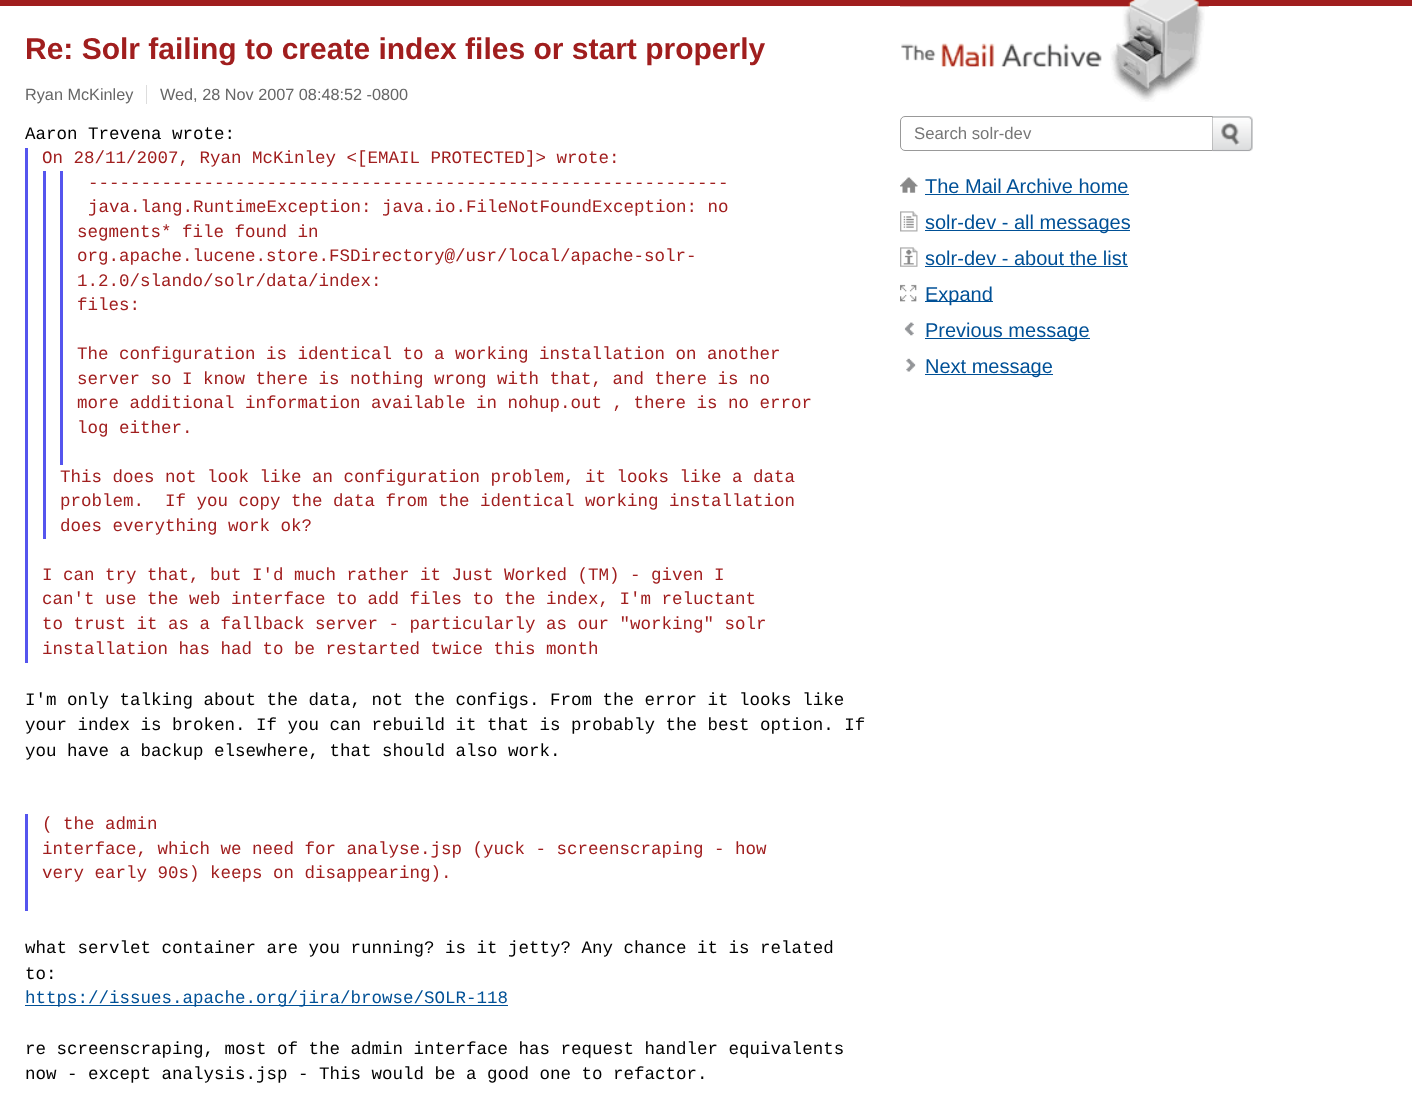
<?xml version="1.0" encoding="UTF-8"?>
<svg xmlns="http://www.w3.org/2000/svg" width="1412" height="1112">
    <rect width="100%" height="100%" fill="#FFFFFF"/>
    <rect x="0" y="0" width="1412" height="6" fill="#A01E1E"/>
    <text x="25" y="59" font-family="Liberation Sans" font-size="30" font-weight="700" fill="#A01E1E">Re: Solr failing to create index files or start properly</text>
    <text x="25" y="100" font-family="Liberation Sans" font-size="16.25" fill="#666666">Ryan McKinley</text>
    <rect x="146" y="85" width="1" height="19" fill="#DDDDDD"/>
    <text x="160" y="100" font-family="Liberation Sans" font-size="16.25" fill="#666666">Wed, 28 Nov 2007 08:48:52 -0800</text>
    <text x="25" y="139" font-family="Liberation Mono" font-size="17.5" fill="#000000">Aaron Trevena wrote:</text>
    <rect x="25" y="148" width="3" height="515" fill="#5555EE"/>
    <text x="42" y="163" font-family="Liberation Mono" font-size="17.5" fill="#A01E1E">On 28/11/2007, Ryan McKinley &lt;[EMAIL PROTECTED]&gt; wrote:</text>
    <rect x="43" y="171" width="3" height="368" fill="#5555EE"/>
    <rect x="60" y="171" width="3" height="294" fill="#5555EE"/>
    <text font-family="Liberation Mono" font-size="17.5" fill="#A01E1E">
        <tspan x="88" y="188">-------------------------------------------------------------</tspan>
        <tspan x="88" y="212">java.lang.RuntimeException: java.io.FileNotFoundException: no</tspan>
    </text>
    <text font-family="Liberation Mono" font-size="17.5" fill="#A01E1E">
        <tspan x="77" y="237">segments* file found in</tspan>
        <tspan x="77" y="261">org.apache.lucene.store.FSDirectory@/usr/local/apache-solr-</tspan>
        <tspan x="77" y="286">1.2.0/slando/solr/data/index:</tspan>
        <tspan x="77" y="310">files:</tspan>
    </text>
    <text font-family="Liberation Mono" font-size="17.5" fill="#A01E1E">
        <tspan x="77" y="359">The configuration is identical to a working installation on another</tspan>
        <tspan x="77" y="384">server so I know there is nothing wrong with that, and there is no</tspan>
        <tspan x="77" y="408">more additional information available in nohup.out , there is no error</tspan>
        <tspan x="77" y="433">log either.</tspan>
    </text>
    <text font-family="Liberation Mono" font-size="17.5" fill="#A01E1E" xml:space="preserve"><tspan x="60" y="482">This does not look like an configuration problem, it looks like a data</tspan><tspan x="60" y="506">problem.  If you copy the data from the identical working installation</tspan><tspan x="60" y="531">does everything work ok?</tspan></text>
    <text font-family="Liberation Mono" font-size="17.5" fill="#A01E1E">
        <tspan x="42" y="580">I can try that, but I'd much rather it Just Worked (TM) - given I</tspan>
        <tspan x="42" y="604">can't use the web interface to add files to the index, I'm reluctant</tspan>
        <tspan x="42" y="629">to trust it as a fallback server - particularly as our "working" solr</tspan>
        <tspan x="42" y="654">installation has had to be restarted twice this month</tspan>
    </text>
    <text font-family="Liberation Mono" font-size="17.5" fill="#000000">
        <tspan x="25" y="705">I'm only talking about the data, not the configs. From the error it looks like</tspan>
        <tspan x="25" y="730">your index is broken. If you can rebuild it that is probably the best option. If</tspan>
        <tspan x="25" y="756">you have a backup elsewhere, that should also work.</tspan>
    </text>
    <rect x="25" y="814" width="3" height="97" fill="#5555EE"/>
    <text font-family="Liberation Mono" font-size="17.5" fill="#A01E1E">
        <tspan x="42" y="829">( the admin</tspan>
        <tspan x="42" y="854">interface, which we need for analyse.jsp (yuck - screenscraping - how</tspan>
        <tspan x="42" y="878">very early 90s) keeps on disappearing).</tspan>
    </text>
    <text font-family="Liberation Mono" font-size="17.5" fill="#000000">
        <tspan x="25" y="953">what servlet container are you running? is it jetty? Any chance it is related</tspan>
        <tspan x="25" y="979">to:</tspan>
    </text>
    <rect x="25" y="1005" width="483" height="1" fill="#005096"/>
    <text x="25" y="1003" font-family="Liberation Mono" font-size="17.5" fill="#005096">https://issues.apache.org/jira/browse/SOLR-118</text>
    <text font-family="Liberation Mono" font-size="17.5" fill="#000000">
        <tspan x="25" y="1054">re screenscraping, most of the admin interface has request handler equivalents</tspan>
        <tspan x="25" y="1079">now - except analysis.jsp - This would be a good one to refactor.</tspan>
    </text>
    <image x="900" y="0" width="309" height="102" href="img_01.png"/>
    <path d="M 905 116.5 H 1212.5 V 150.5 H 905 C 902.5 150.5 900.5 148.5 900.5 146 V 121 C 900.5 118.5 902.5 116.5 905 116.5 Z" fill="none" stroke="#999999"/>
    <text x="914" y="139" font-family="Liberation Sans" font-size="16.75" fill="#777777">Search solr-dev</text>
    <image x="1212" y="116" width="41" height="36" href="img_02.png"/>
    <image x="900" y="177" width="18" height="16" href="img_03.png"/>
    <text x="925" y="193" font-family="Liberation Sans" font-size="20" fill="#005096">The Mail Archive home</text>
    <rect x="925" y="194" width="204" height="1" fill="#005096"/>
    <image x="900" y="211" width="18" height="21" href="img_04.png"/>
    <rect x="925" y="230" width="205" height="1" fill="#005096"/>
    <text x="925" y="229" font-family="Liberation Sans" font-size="20" fill="#005096">solr-dev - all messages</text>
    <image x="900" y="247" width="18" height="20" href="img_05.png"/>
    <text x="925" y="265" font-family="Liberation Sans" font-size="20" fill="#005096">solr-dev - about the list</text>
    <rect x="925" y="266" width="203" height="1" fill="#005096"/>
    <image x="900" y="284" width="17" height="18" href="img_06.png"/>
    <rect x="925" y="301" width="68" height="1" fill="#005096"/>
    <text x="925" y="301" font-family="Liberation Sans" font-size="20" fill="#005096">Expand</text>
    <image x="904" y="322" width="10" height="14" href="img_07.png"/>
    <rect x="925" y="338" width="165" height="1" fill="#005096"/>
    <text x="925" y="337" font-family="Liberation Sans" font-size="20" fill="#005096">Previous message</text>
    <image x="906" y="358" width="10" height="14" href="img_08.png"/>
    <rect x="925" y="374" width="128" height="1" fill="#005096"/>
    <text x="925" y="373" font-family="Liberation Sans" font-size="20" fill="#005096">Next message</text>
</svg>
